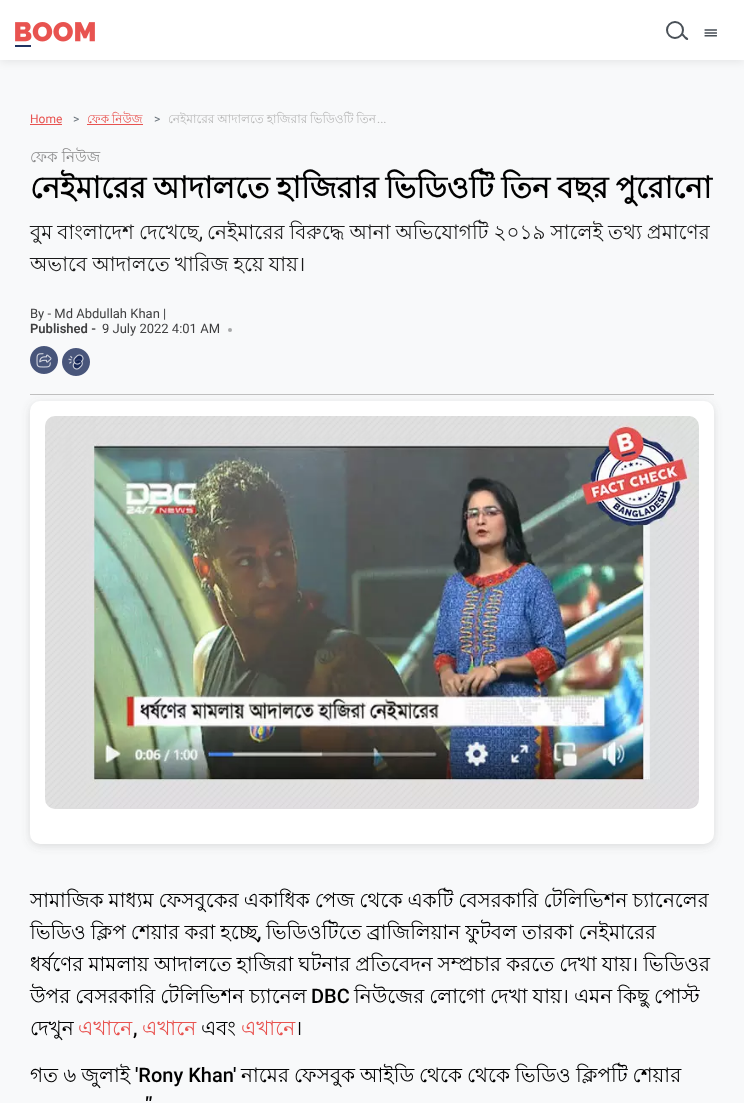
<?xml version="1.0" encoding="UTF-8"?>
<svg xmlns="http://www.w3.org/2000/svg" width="744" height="1103">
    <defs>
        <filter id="blur1" x="-50%" y="-200%" width="200%" height="500%"><feGaussianBlur stdDeviation="4"/></filter>
    </defs>
    <rect width="100%" height="100%" fill="#F8F9FA"/>
    <rect x="0" y="2" width="744" height="60" fill="#000000" fill-opacity="0.08" filter="url(#blur1)"/>
    <rect x="0" y="0" width="744" height="60" fill="#FFFFFF"/>
    <image x="15" y="22" width="80" height="25" href="img_01.png"/>
    <circle cx="675" cy="30" r="8" fill="none" stroke="#495057" stroke-width="2"/>
    <path d="M 683.5 34 L 685.5 36.5 C 686.5 37 689 38.5 688 39.5 C 687 41.5 684 37.5 683.5 37 L 682 35.5 C 681.5 34.5 683 33.5 683.5 34 Z" fill="#495057"/>
    <text x="704" y="38" font-family="FreeSans" font-size="18" fill="#495057">☰</text>
    <text x="30" y="123" font-family="Roboto" font-size="12" fill="#E85350">Home</text>
    <rect x="30" y="124" width="32" height="1" fill="#E85350"/>
    <text x="73" y="123" font-family="Roboto" font-size="12" fill="#6C757D">&gt;</text>
    <text x="87" y="123" word-spacing="-0.5" font-family="Lohit Bengali" font-size="12" fill="#E85350">ফেক নিউজ</text>
    <rect x="87" y="124" width="56" height="1" fill="#E85350"/>
    <text x="154" y="123" font-family="Roboto" font-size="12" fill="#6C757D">&gt;</text>
    <text x="168" y="123" word-spacing="-0.5" font-family="Lohit Bengali" font-size="12" fill="#B7B7B7">নেইমারের আদালতে হাজিরার ভিডিওটি তিন</text>
    <text x="377" y="123" font-family="Roboto" font-size="12" fill="#B7B7B7">...</text>
    <text x="30" y="162" font-family="Lohit Bengali" font-size="15" fill="#8B8B8C">ফেক নিউজ</text>
    <text x="30" y="198" word-spacing="-1.25" font-family="Lohit Bengali" font-size="30" font-weight="700" fill="#000000">নেইমারের আদালতে হাজিরার ভিডিওটি তিন বছর পুরোনো</text>
    <text x="30" y="239" word-spacing="-0.5" font-family="Lohit Bengali" font-size="20" fill="#191919">বুম বাংলাদেশ দেখেছে</text>
    <text x="199" y="239" font-family="Roboto" font-size="20" fill="#191919">,</text>
    <text x="207" y="239" word-spacing="-0.5" font-family="Lohit Bengali" font-size="20" fill="#191919">নেইমারের বিরুদ্ধে আনা অভিযোগটি ২০১৯ সালেই তথ্য প্রমাণের</text>
    <text x="30" y="271" word-spacing="-0.5" font-family="Lohit Bengali" font-size="20" fill="#191919">অভাবে আদালতে খারিজ হয়ে যায়।</text>
    <text x="30" y="318" font-family="Roboto" font-size="13" fill="#3E3E3F">By - Md Abdullah Khan |</text>
    <text x="30" y="333" font-family="Roboto" font-size="13" font-weight="600" fill="#3E3E3F">Published -</text>
    <text x="102" y="333" font-family="Roboto" font-size="13" fill="#3E3E3F">9 July 2022 4:01 AM</text>
    <circle cx="230" cy="330" r="2" fill="#A8A9A9"/>
    <image x="30" y="346" width="28" height="28" href="img_02.png"/>
    <circle cx="75.5" cy="361.5" r="13.5" fill="#FDFEFE"/>
    <image x="62" y="348" width="28" height="28" href="img_03.png"/>
    <rect x="30" y="394" width="684" height="1" fill="#C0C0C0"/>
    <rect x="30" y="403" width="684" height="443" rx="10" fill="#636363" fill-opacity="0.2" filter="url(#blur1)"/>
    <rect x="30" y="401" width="684" height="443" rx="10" fill="#FFFFFF"/>
    <image x="45" y="416" width="654" height="393" href="img_04.png"/>
    <text font-family="Lohit Bengali" font-size="20" fill="#000000">
        <tspan x="30" y="907" word-spacing="-0.5">সামাজিক মাধ্যম ফেসবুকের একাধিক পেজ থেকে একটি বেসরকারি টেলিভিশন চ্যানেলের</tspan>
        <tspan x="30" y="939" word-spacing="-0.5">ভিডিও ক্লিপ শেয়ার করা হচ্ছে</tspan>
    </text>
    <text x="257" y="939" font-family="Roboto" font-size="20" font-weight="500" fill="#000000">,</text>
    <text x="266" y="939" word-spacing="-0.5" font-family="Lohit Bengali" font-size="20" fill="#000000">ভিডিওটিতে ব্রাজিলিয়ান ফুটবল তারকা নেইমারের</text>
    <text font-family="Lohit Bengali" font-size="20" fill="#000000">
        <tspan x="30" y="971" word-spacing="-0.5">ধর্ষণের মামলায় আদালতে হাজিরা ঘটনার প্রতিবেদন সম্প্রচার করতে দেখা যায়। ভিডিওর</tspan>
        <tspan x="30" y="1003" word-spacing="-0.5">উপর বেসরকারি টেলিভিশন চ্যানেল</tspan>
    </text>
    <text x="311" y="1003" font-family="Roboto" font-size="20" font-weight="500" fill="#000000">DBC</text>
    <text x="354" y="1003" word-spacing="-0.5" font-family="Lohit Bengali" font-size="20" fill="#000000">নিউজের লোগো দেখা যায়। এমন কিছু পোস্ট</text>
    <text x="30" y="1035" font-family="Lohit Bengali" font-size="20" fill="#000000">দেখুন</text>
    <text x="78" y="1035" font-family="Lohit Bengali" font-size="20" fill="#E85350">এখানে</text>
    <text x="133" y="1035" font-family="Roboto" font-size="20" font-weight="500" fill="#000000">,</text>
    <text x="142" y="1035" font-family="Lohit Bengali" font-size="20" fill="#E85350">এখানে</text>
    <text x="201" y="1035" font-family="Lohit Bengali" font-size="20" fill="#000000">এবং</text>
    <text x="241" y="1035" font-family="Lohit Bengali" font-size="20" fill="#E85350">এখানে</text>
    <text x="295" y="1035" font-family="Lohit Bengali" font-size="20" fill="#000000">।</text>
    <text x="30" y="1082" word-spacing="-0.5" font-family="Lohit Bengali" font-size="20" fill="#000000">গত ৬ জুলাই</text>
    <text x="135" y="1082" font-family="Roboto" font-size="20" font-weight="500" fill="#000000">'Rony Khan'</text>
    <text x="241" y="1082" font-family="Lohit Bengali" font-size="20" fill="#000000">নামের</text>
    <text x="294" y="1082" font-family="Lohit Bengali" font-size="20" fill="#000000">ফেসবুক</text>
    <text x="360" y="1082" font-family="Lohit Bengali" font-size="20" fill="#000000">আইডি</text>
    <text x="419" y="1082" font-family="Lohit Bengali" font-size="20" fill="#000000">থেকে</text>
    <text x="467" y="1082" font-family="Lohit Bengali" font-size="20" fill="#000000">থেকে</text>
    <text x="515" y="1082" font-family="Lohit Bengali" font-size="20" fill="#000000">ভিডিও</text>
    <text x="576" y="1082" word-spacing="-0.5" font-family="Lohit Bengali" font-size="20" fill="#000000">ক্লিপটি শেয়ার</text>
    <text x="142" y="1114" font-family="Lohit Bengali" font-size="20" font-weight="700" font-style="italic" fill="#000000">"</text>
</svg>
